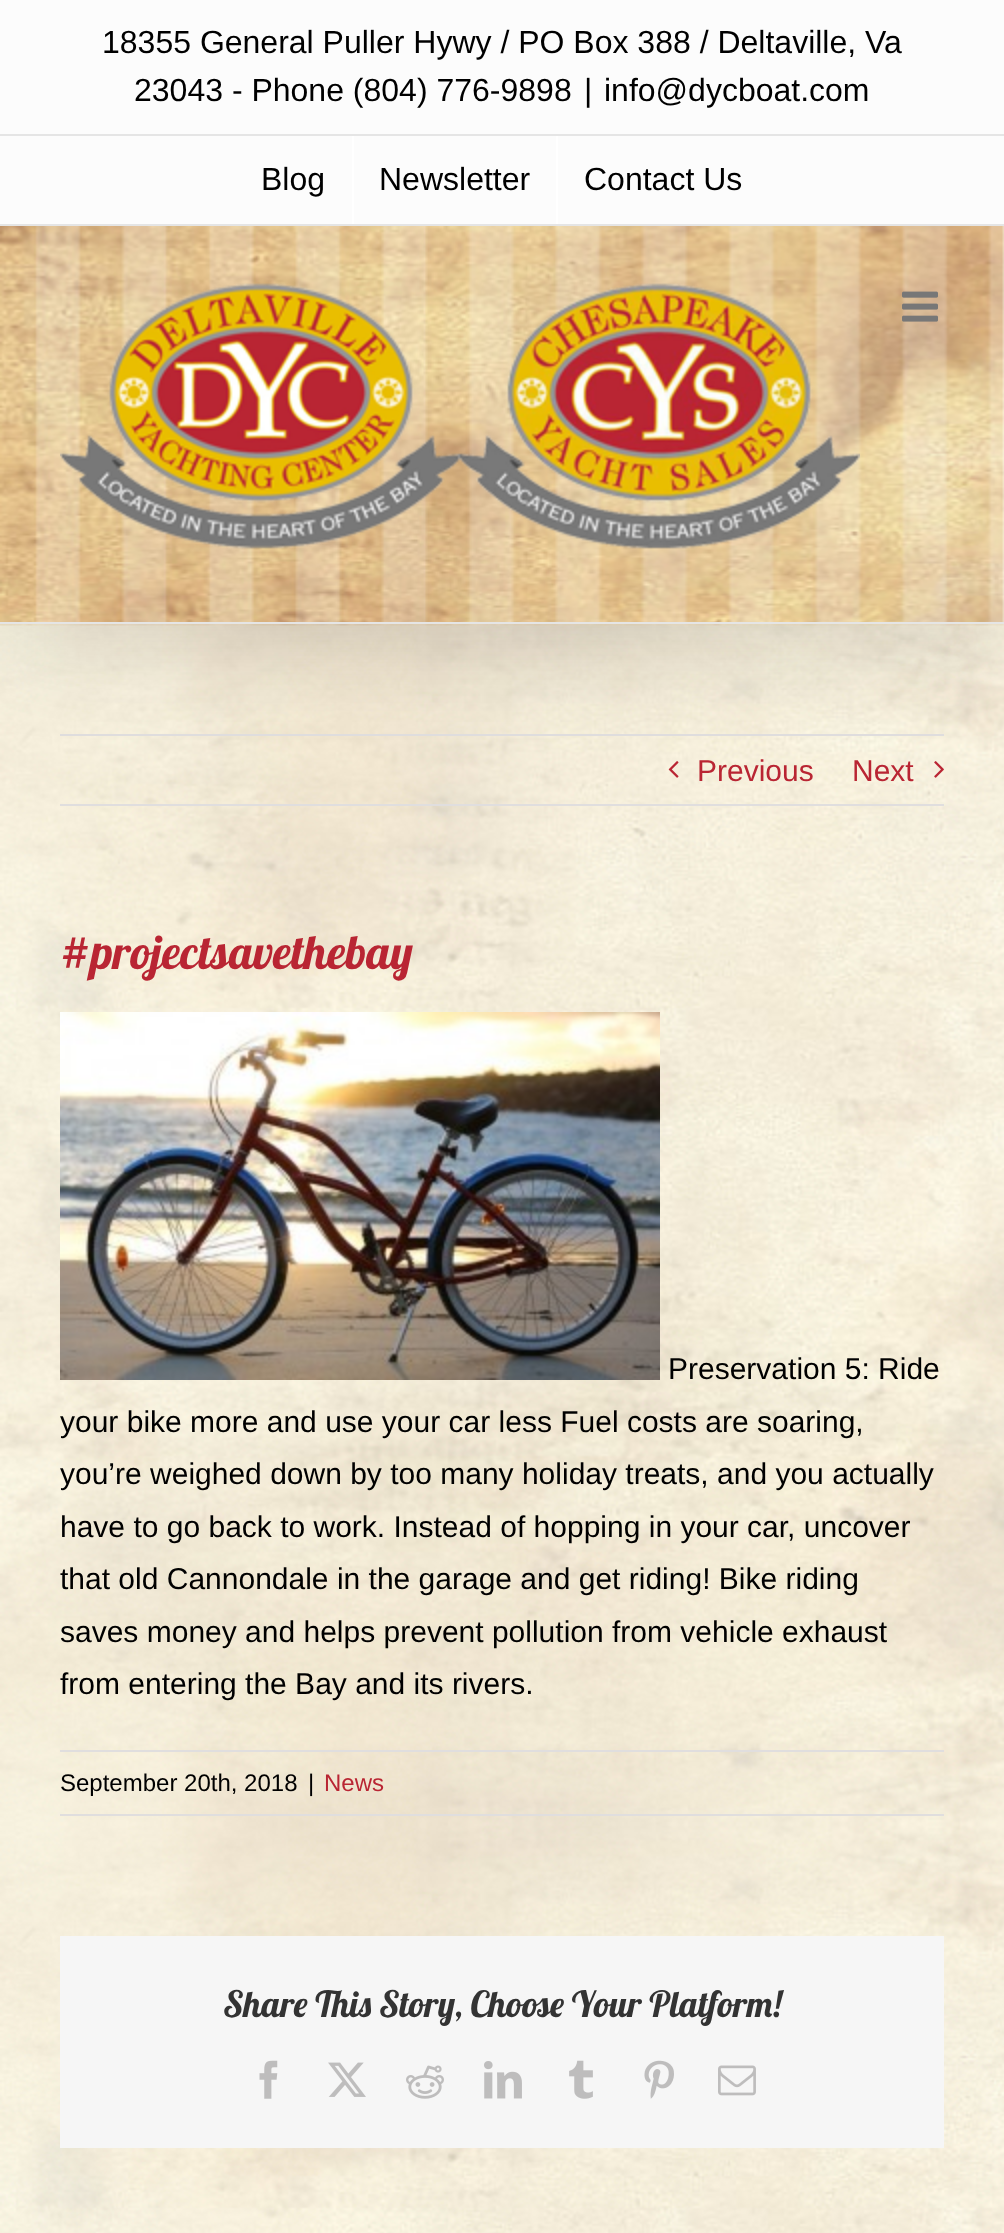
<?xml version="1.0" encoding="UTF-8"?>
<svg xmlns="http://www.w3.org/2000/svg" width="1004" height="2233">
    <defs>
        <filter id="blur1" x="-50%" y="-200%" width="200%" height="500%"><feGaussianBlur stdDeviation="50"/></filter>
    </defs>
    <rect width="100%" height="100%" fill="#FFFFFF"/>
    <image x="0" y="624" width="1004" height="1609" href="img_04.png"/>
    <rect x="60" y="734" width="884" height="2" fill="#E0DEDE"/>
    <image x="668" y="761" width="11" height="17" href="img_05.png"/>
    <image x="934" y="761" width="10" height="17" href="img_06.png"/>
    <rect x="4" y="24" width="996" height="616" fill="#000000" fill-opacity="0.14" filter="url(#blur1)"/>
    <rect x="0" y="0" width="1004" height="224" fill="#FCFCFC"/>
    <rect x="0" y="224" width="1004" height="2" fill="#E5E5E5"/>
    <rect x="0" y="134" width="1004" height="2" fill="#E5E5E5"/>
    <text x="102" y="53" font-family="Liberation Sans" font-size="32" fill="#000000">18355 General Puller Hywy / PO Box 388 / Deltaville, Va</text>
    <text x="134" y="101" font-family="Liberation Sans" font-size="32" fill="#000000">23043 - Phone (804) 776-9898</text>
    <text x="584" y="101" font-family="Liberation Sans" font-size="32" fill="#000000">|</text>
    <text x="604" y="101" font-family="Liberation Sans" font-size="32" fill="#000000">info@dycboat.com</text>
    <text x="261" y="190" font-family="Liberation Sans" font-size="32" fill="#000000">Blog</text>
    <rect x="352" y="136" width="2" height="88" fill="#FFFFFF"/>
    <text x="379" y="190" font-family="Liberation Sans" font-size="32" fill="#000000">Newsletter</text>
    <rect x="556" y="136" width="2" height="88" fill="#FFFFFF"/>
    <text x="584" y="190" font-family="Liberation Sans" font-size="32" fill="#000000">Contact Us</text>
    <rect x="1002" y="226" width="2" height="396" fill="#FFFFFF"/>
    <image x="0" y="226" width="1004" height="400" href="img_01.png"/>
    <rect x="0" y="622" width="1004" height="2" fill="#E5E5E5"/>
    <image x="60" y="283" width="800" height="266" href="img_02.png"/>
    <image x="902" y="291" width="36" height="31" href="img_03.png"/>
    <rect x="60" y="804" width="884" height="2" fill="#E0DEDE"/>
    <text x="697" y="781" font-family="Liberation Sans" font-size="30" fill="#B92533">Previous</text>
    <text x="852" y="781" font-family="Liberation Sans" font-size="30" fill="#B92533">Next</text>
    <text x="60" y="969" font-family="Lobster" font-size="47" fill="#B92533">#projectsavethebay</text>
    <image x="60" y="1012" width="600" height="368" href="img_07.png"/>
    <text x="668" y="1379" font-family="Liberation Sans" font-size="30" fill="#000000">Preservation 5: Ride</text>
    <text font-family="Liberation Sans" font-size="30" fill="#000000">
        <tspan x="60" y="1432">your bike more and use your car less Fuel costs are soaring,</tspan>
        <tspan x="60" y="1484">you’re weighed down by too many holiday treats, and you actually</tspan>
        <tspan x="60" y="1537">have to go back to work. Instead of hopping in your car, uncover</tspan>
        <tspan x="60" y="1589">that old Cannondale in the garage and get riding! Bike riding</tspan>
        <tspan x="60" y="1642">saves money and helps prevent pollution from vehicle exhaust</tspan>
        <tspan x="60" y="1694">from entering the Bay and its rivers.</tspan>
    </text>
    <rect x="60" y="1750" width="884" height="2" fill="#E0DEDE"/>
    <rect x="60" y="1814" width="884" height="2" fill="#E0DEDE"/>
    <text x="60" y="1791" font-family="Liberation Sans" font-size="24" fill="#000000">September 20th, 2018</text>
    <text x="308" y="1791" font-family="Liberation Sans" font-size="24" fill="#000000">|</text>
    <text x="324" y="1791" font-family="Liberation Sans" font-size="24" fill="#B92533">News</text>
    <rect x="60" y="1936" width="884" height="212" fill="#F6F6F6"/>
    <text x="223" y="2017" font-family="Lobster" font-size="36" fill="#333333">Share This Story, Choose Your Platform!</text>
    <image x="259" y="2060" width="19" height="39" href="img_08.png"/>
    <image x="328" y="2062" width="38" height="35" href="img_09.png"/>
    <image x="406" y="2065" width="38" height="34" href="img_10.png"/>
    <image x="484" y="2061" width="38" height="38" href="img_11.png"/>
    <image x="569" y="2060" width="24" height="39" href="img_12.png"/>
    <image x="644" y="2060" width="30" height="39" href="img_13.png"/>
    <image x="718" y="2065" width="38" height="31" href="img_14.png"/>
</svg>
